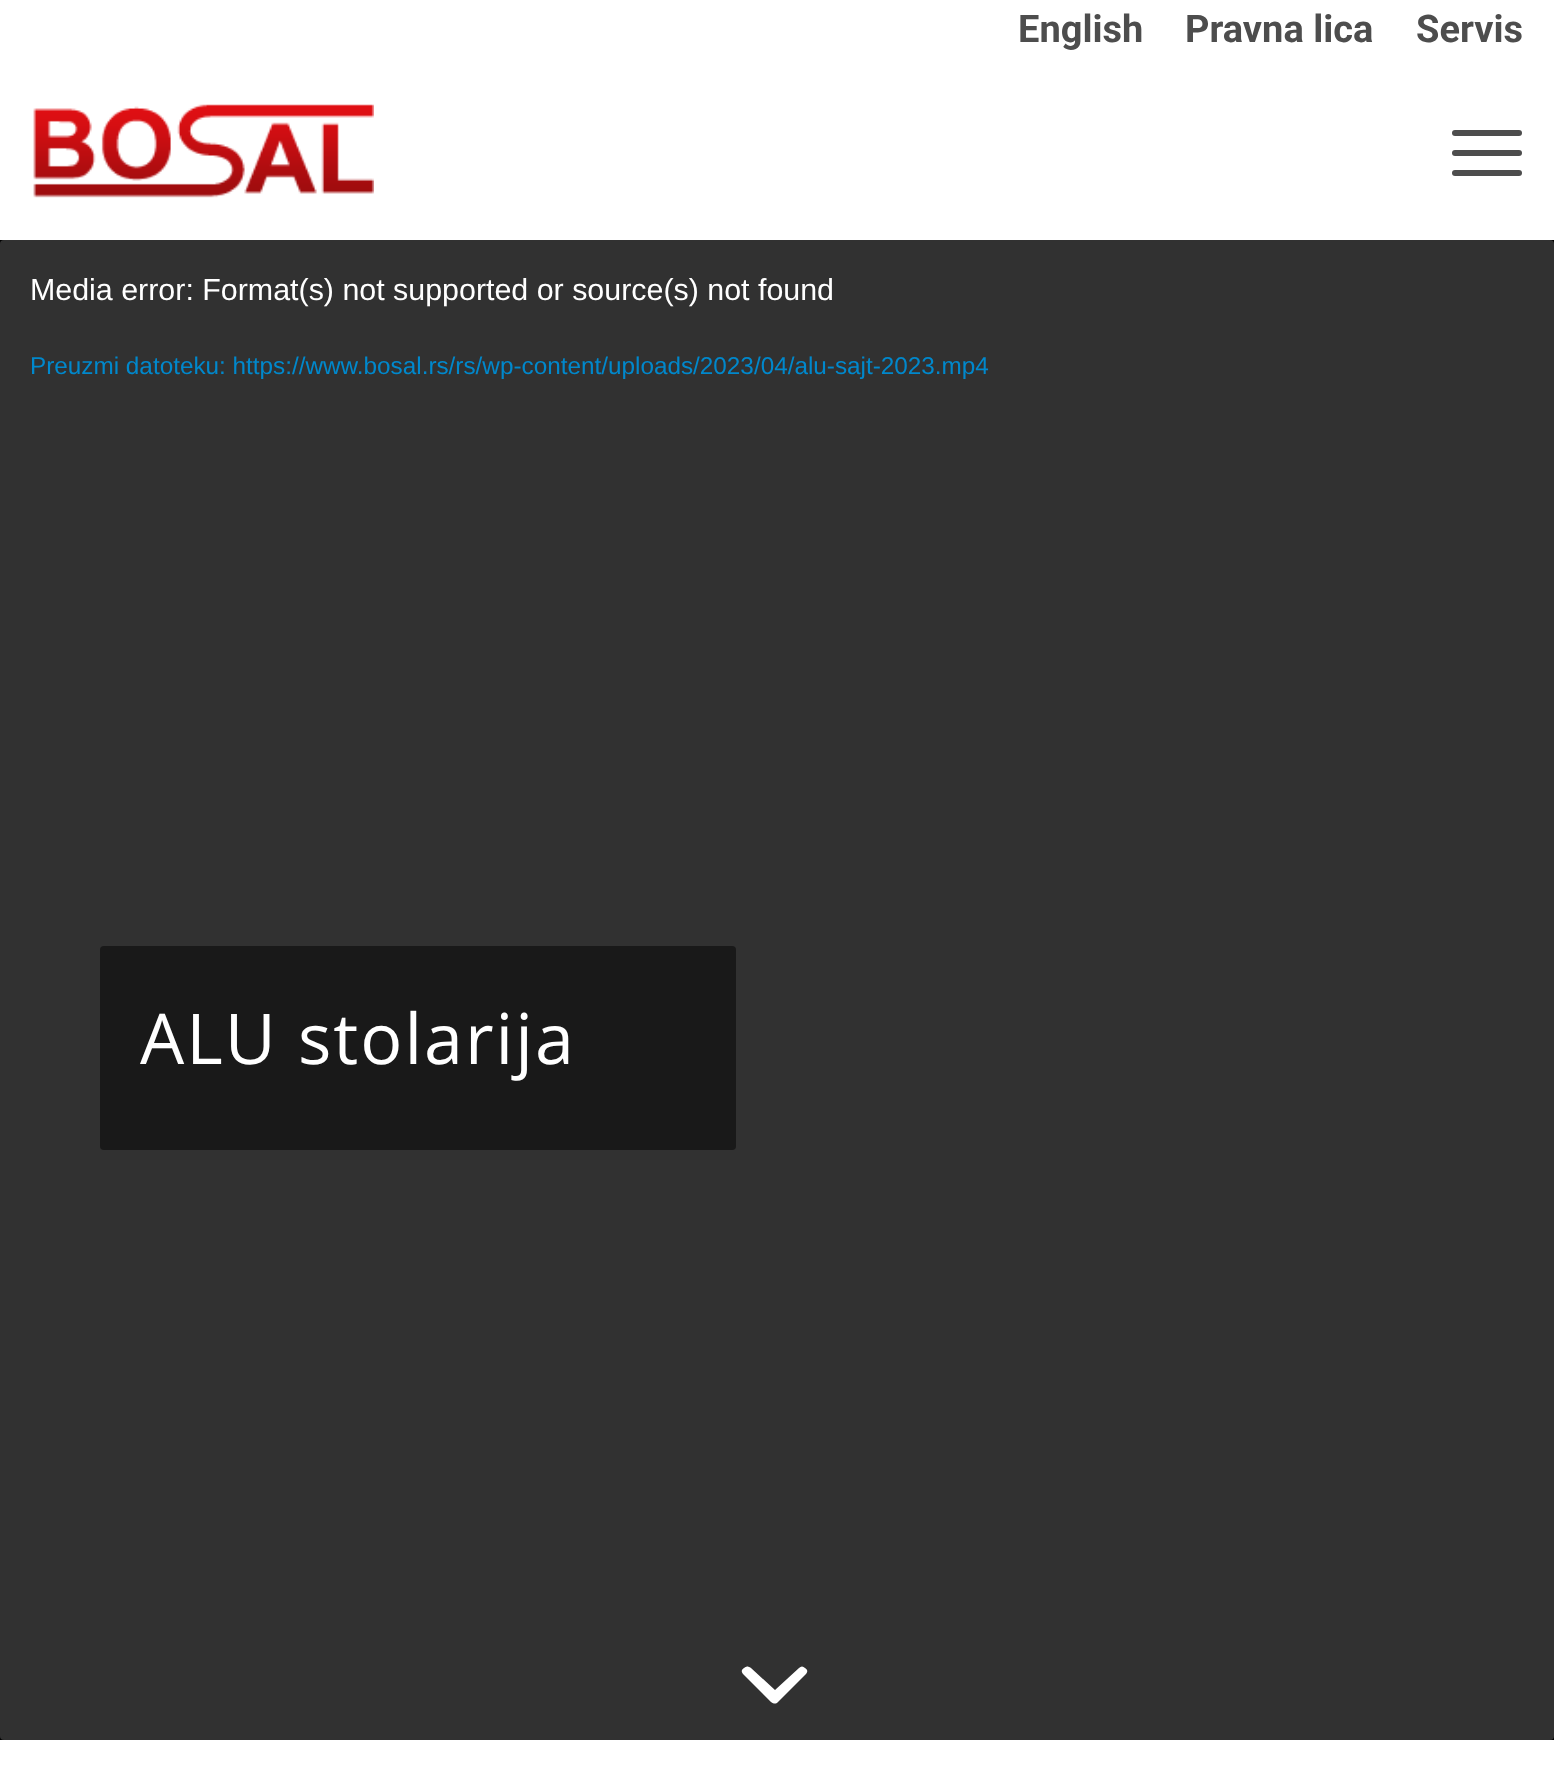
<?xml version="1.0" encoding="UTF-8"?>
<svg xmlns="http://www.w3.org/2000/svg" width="1554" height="1783">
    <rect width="100%" height="100%" fill="#FFFFFF"/>
    <text x="1018" y="42" font-family="Roboto" font-size="38" font-weight="700" fill="#4D4D4D">English</text>
    <text x="1185" y="42" font-family="Roboto" font-size="38" font-weight="700" fill="#4D4D4D">Pravna lica</text>
    <text x="1416" y="42" font-family="Roboto" font-size="38" font-weight="700" fill="#4D4D4D">Servis</text>
    <image x="33" y="104" width="341" height="94" href="img_01.png"/>
    <rect x="1452" y="150" width="70" height="6" rx="3" fill="#4D4D4D"/>
    <rect x="1452" y="130" width="70" height="6" rx="3" fill="#4D4D4D"/>
    <rect x="1452" y="170" width="70" height="6" rx="3" fill="#4D4D4D"/>
    <rect x="0" y="240" width="1554" height="1500" fill="#000000"/>
    <rect x="0" y="240" width="1554" height="1500" rx="4" fill="#313131"/>
    <text x="30" y="300" font-family="Liberation Sans" font-size="30.4" fill="#FFFFFF">Media error: Format(s) not supported or source(s) not found</text>
    <text x="30" y="374" font-family="Liberation Sans" font-size="24.3" fill="#0088CC">Preuzmi datoteku: https://www.bosal.rs/rs/wp-content/uploads/2023/04/alu-sajt-2023.mp4</text>
    <rect x="100" y="946" width="636" height="204" rx="4" fill="#191919"/>
    <text x="140" y="1064" font-family="Open Sans" font-size="70" letter-spacing="2" fill="#FFFFFF">ALU stolarija</text>
    <path d="M 799 1668 C 801 1666 803 1666 805 1668 C 808 1670 808 1672 805 1675 L 778 1702 C 776 1704 774 1704 771 1702 L 744 1675 C 741 1672 741 1670 744 1668 C 746 1666 748 1666 751 1668 L 775 1690 Z" fill="#FFFFFF"/>
</svg>
